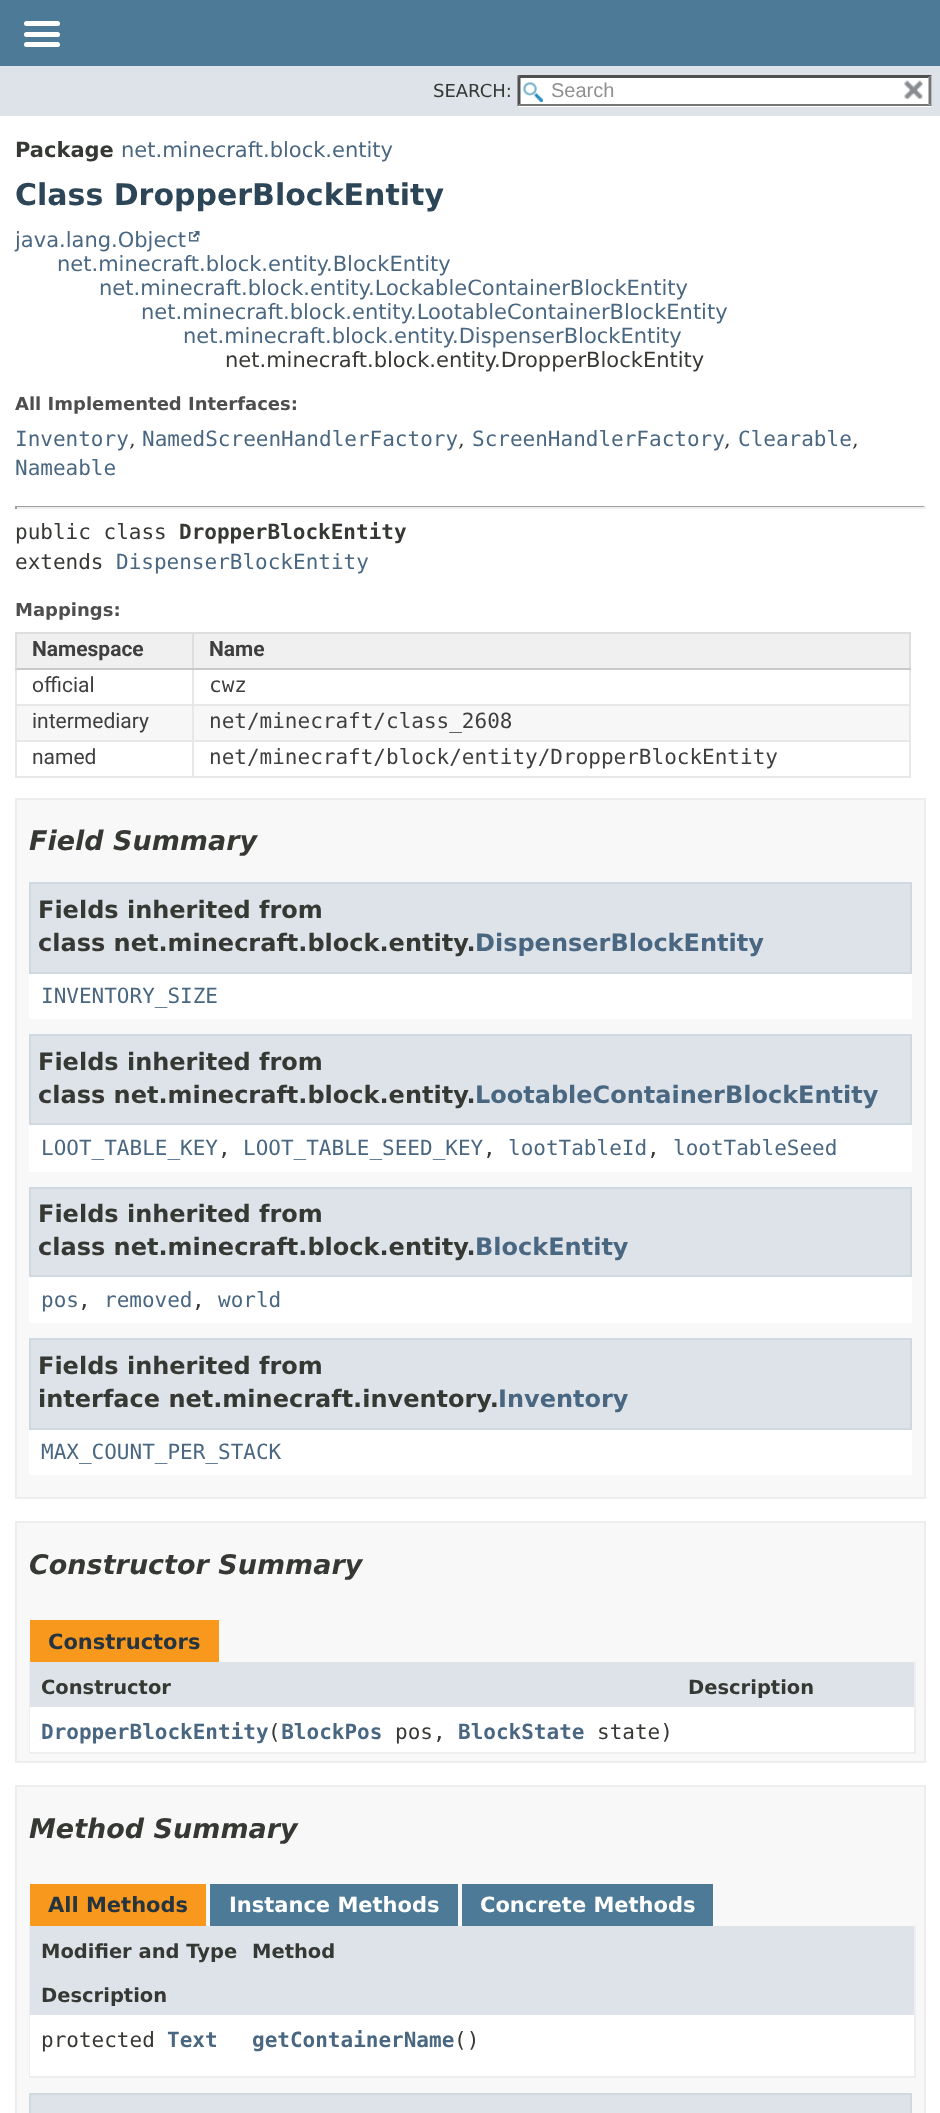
<?xml version="1.0" encoding="UTF-8"?>
<svg xmlns="http://www.w3.org/2000/svg" width="940" height="2113">
    <rect width="100%" height="100%" fill="#FFFFFF"/>
    <rect x="0" y="0" width="940" height="66" fill="#4D7A97"/>
    <rect x="24" y="21" width="36" height="5" rx="2.5" fill="#FFFFFF"/>
    <rect x="24" y="32" width="36" height="5" rx="2.5" fill="#FFFFFF"/>
    <rect x="24" y="42" width="36" height="5" rx="2.5" fill="#FFFFFF"/>
    <rect x="0" y="66" width="940" height="50" fill="#DEE3E9"/>
    <text x="433" y="97" font-family="DejaVu Sans" font-size="18" fill="#353833">SEARCH:</text>
    <rect x="518" y="75" width="414" height="32" fill="#FFFFFF"/>
    <image x="523" y="82" width="20" height="20" href="img_01.png"/>
    <path d="M 518 75 H 932 L 928 78 H 520 Z" fill="#4F4F4F"/>
    <path d="M 931.5 75 V 106.5 L 928.5 103.5 V 78 Z" fill="#767676"/>
    <path d="M 932 106 H 518 L 520 104 H 928 Z" fill="#767676"/>
    <path d="M 517.5 106.5 V 75 L 520.5 78 V 103.5 Z" fill="#4F4F4F"/>
    <text x="551" y="97" font-family="Liberation Sans" font-size="20" fill="#909090">Search</text>
    <image x="904" y="80" width="19" height="19" href="img_02.png"/>
    <text x="15" y="157" font-family="DejaVu Sans" font-size="21" font-weight="700" fill="#353833">Package</text>
    <text x="121" y="157" font-family="DejaVu Sans" font-size="21" fill="#4A6782">net.minecraft.block.entity</text>
    <text x="15" y="205" font-family="DejaVu Sans" font-size="30" font-weight="700" fill="#2C4557">Class DropperBlockEntity</text>
    <text x="15" y="247" font-family="DejaVu Sans" font-size="21" fill="#4A6782">java.lang.Object</text>
    <image x="189" y="231" width="11" height="11" href="img_03.png"/>
    <text x="57" y="271" font-family="DejaVu Sans" font-size="21" fill="#4A6782">net.minecraft.block.entity.BlockEntity</text>
    <text x="99" y="295" font-family="DejaVu Sans" font-size="21" fill="#4A6782">net.minecraft.block.entity.LockableContainerBlockEntity</text>
    <text x="141" y="319" font-family="DejaVu Sans" font-size="21" fill="#4A6782">net.minecraft.block.entity.LootableContainerBlockEntity</text>
    <text x="183" y="343" font-family="DejaVu Sans" font-size="21" fill="#4A6782">net.minecraft.block.entity.DispenserBlockEntity</text>
    <text x="225" y="367" font-family="DejaVu Sans" font-size="21" fill="#353833">net.minecraft.block.entity.DropperBlockEntity</text>
    <text x="15" y="410" font-family="DejaVu Sans" font-size="18" font-weight="700" fill="#4E4E4E">All Implemented Interfaces:</text>
    <text x="15" y="446" font-family="DejaVu Sans Mono" font-size="21" fill="#4A6782">Inventory</text>
    <text x="129" y="446" font-family="DejaVu Serif" font-size="21" fill="#353833">,</text>
    <text x="142" y="446" font-family="DejaVu Sans Mono" font-size="21" fill="#4A6782">NamedScreenHandlerFactory</text>
    <text x="458" y="446" font-family="DejaVu Serif" font-size="21" fill="#353833">,</text>
    <text x="472" y="446" font-family="DejaVu Sans Mono" font-size="21" fill="#4A6782">ScreenHandlerFactory</text>
    <text x="724" y="446" font-family="DejaVu Serif" font-size="21" fill="#353833">,</text>
    <text x="738" y="446" font-family="DejaVu Sans Mono" font-size="21" fill="#4A6782">Clearable</text>
    <text x="852" y="446" font-family="DejaVu Serif" font-size="21" fill="#353833">,</text>
    <text x="15" y="475" font-family="DejaVu Sans Mono" font-size="21" fill="#4A6782">Nameable</text>
    <rect x="15" y="506" width="911" height="1" fill="#9F9F9F"/>
    <rect x="924" y="506" width="2" height="3" fill="#EEEEEE"/>
    <rect x="15" y="507" width="911" height="2" fill="#EEEEEE"/>
    <rect x="15" y="506" width="2" height="3" fill="#9F9F9F"/>
    <text x="15" y="539" font-family="DejaVu Sans Mono" font-size="21" fill="#353833">public class</text>
    <text x="179" y="539" font-family="DejaVu Sans Mono" font-size="21" font-weight="700" fill="#353833">DropperBlockEntity</text>
    <text x="15" y="569" font-family="DejaVu Sans Mono" font-size="21" fill="#353833">extends</text>
    <text x="116" y="569" font-family="DejaVu Sans Mono" font-size="21" fill="#4A6782">DispenserBlockEntity</text>
    <text x="15" y="616" font-family="DejaVu Sans" font-size="18" font-weight="700" fill="#4E4E4E">Mappings:</text>
    <rect x="909" y="670" width="2" height="107" fill="#E8E8E8"/>
    <rect x="15" y="776" width="896" height="2" fill="#E8E8E8"/>
    <rect x="15" y="670" width="2" height="107" fill="#E8E8E8"/>
    <rect x="17" y="634" width="175" height="34" fill="#F0F0F0"/>
    <rect x="192" y="632" width="719" height="2" fill="#DEDEDE"/>
    <rect x="909" y="632" width="2" height="37" fill="#DEDEDE"/>
    <rect x="192" y="704" width="719" height="2" fill="#E8E8E8"/>
    <rect x="17" y="706" width="892" height="34" fill="#F7F7F7"/>
    <rect x="192" y="740" width="719" height="2" fill="#E8E8E8"/>
    <rect x="192" y="740" width="2" height="37" fill="#E8E8E8"/>
    <rect x="15" y="740" width="179" height="2" fill="#E8E8E8"/>
    <rect x="192" y="704" width="2" height="37" fill="#E8E8E8"/>
    <rect x="15" y="704" width="179" height="2" fill="#E8E8E8"/>
    <rect x="192" y="668" width="2" height="37" fill="#E8E8E8"/>
    <rect x="192" y="668" width="719" height="2" fill="#C9C9C9"/>
    <rect x="192" y="632" width="2" height="37" fill="#DEDEDE"/>
    <rect x="15" y="632" width="179" height="2" fill="#DEDEDE"/>
    <rect x="15" y="668" width="179" height="2" fill="#C9C9C9"/>
    <rect x="15" y="632" width="2" height="37" fill="#DEDEDE"/>
    <text x="32" y="656" font-family="Roboto" font-size="21" font-weight="700" fill="#3F3F3F">Namespace</text>
    <rect x="194" y="634" width="715" height="34" fill="#F0F0F0"/>
    <text x="209" y="656" font-family="Roboto" font-size="21" font-weight="700" fill="#3F3F3F">Name</text>
    <text x="32" y="692" font-family="Roboto" font-size="21" fill="#3F3F3F">official</text>
    <text x="209" y="692" font-family="DejaVu Sans Mono" font-size="21" fill="#3F3F3F">cwz</text>
    <text x="32" y="728" font-family="Roboto" font-size="21" fill="#3F3F3F">intermediary</text>
    <text x="209" y="728" font-family="DejaVu Sans Mono" font-size="21" fill="#3F3F3F">net/minecraft/class_2608</text>
    <text x="32" y="764" font-family="Roboto" font-size="21" fill="#3F3F3F">named</text>
    <text x="209" y="764" font-family="DejaVu Sans Mono" font-size="21" fill="#3F3F3F">net/minecraft/block/entity/DropperBlockEntity</text>
    <rect x="16" y="799" width="909" height="699" fill="#F8F8F8" stroke="#EDEDED" stroke-width="2"/>
    <text x="29" y="850" font-family="DejaVu Sans" font-size="27" font-weight="700" font-style="italic" fill="#353833">Field Summary</text>
    <rect x="29" y="974" width="883" height="45" fill="#FFFFFF"/>
    <rect x="30" y="883" width="881" height="90" fill="#DEE3E9" stroke="#D0D9E0" stroke-width="2"/>
    <text font-family="DejaVu Sans" font-size="24" font-weight="700" fill="#353833">
        <tspan x="38" y="918">Fields inherited from</tspan>
        <tspan x="38" y="951">class net.minecraft.block.entity.</tspan>
    </text>
    <text x="475" y="951" font-family="DejaVu Sans" font-size="24" font-weight="700" fill="#4A6782">DispenserBlockEntity</text>
    <text x="41" y="1003" font-family="DejaVu Sans Mono" font-size="21" fill="#4A6782">INVENTORY_SIZE</text>
    <rect x="29" y="1125" width="883" height="47" fill="#FFFFFF"/>
    <rect x="30" y="1035" width="881" height="89" fill="#DEE3E9" stroke="#D0D9E0" stroke-width="2"/>
    <text font-family="DejaVu Sans" font-size="24" font-weight="700" fill="#353833">
        <tspan x="38" y="1070">Fields inherited from</tspan>
        <tspan x="38" y="1103">class net.minecraft.block.entity.</tspan>
    </text>
    <text x="475" y="1103" font-family="DejaVu Sans" font-size="24" font-weight="700" fill="#4A6782">LootableContainerBlockEntity</text>
    <text x="41" y="1155" font-family="DejaVu Sans Mono" font-size="21" fill="#4A6782">LOOT_TABLE_KEY</text>
    <text x="218" y="1155" font-family="DejaVu Sans Mono" font-size="21" fill="#353833">,</text>
    <text x="243" y="1155" font-family="DejaVu Sans Mono" font-size="21" fill="#4A6782">LOOT_TABLE_SEED_KEY</text>
    <text x="483" y="1155" font-family="DejaVu Sans Mono" font-size="21" fill="#353833">,</text>
    <text x="508" y="1155" font-family="DejaVu Sans Mono" font-size="21" fill="#4A6782">lootTableId</text>
    <text x="647" y="1155" font-family="DejaVu Sans Mono" font-size="21" fill="#353833">,</text>
    <text x="673" y="1155" font-family="DejaVu Sans Mono" font-size="21" fill="#4A6782">lootTableSeed</text>
    <rect x="29" y="1277" width="883" height="46" fill="#FFFFFF"/>
    <rect x="30" y="1188" width="881" height="88" fill="#DEE3E9" stroke="#D0D9E0" stroke-width="2"/>
    <text font-family="DejaVu Sans" font-size="24" font-weight="700" fill="#353833">
        <tspan x="38" y="1222">Fields inherited from</tspan>
        <tspan x="38" y="1255">class net.minecraft.block.entity.</tspan>
    </text>
    <text x="475" y="1255" font-family="DejaVu Sans" font-size="24" font-weight="700" fill="#4A6782">BlockEntity</text>
    <text x="41" y="1307" font-family="DejaVu Sans Mono" font-size="21" fill="#4A6782">pos</text>
    <text x="78" y="1307" font-family="DejaVu Sans Mono" font-size="21" fill="#353833">,</text>
    <text x="104" y="1307" font-family="DejaVu Sans Mono" font-size="21" fill="#4A6782">removed</text>
    <text x="192" y="1307" font-family="DejaVu Sans Mono" font-size="21" fill="#353833">,</text>
    <text x="218" y="1307" font-family="DejaVu Sans Mono" font-size="21" fill="#4A6782">world</text>
    <rect x="29" y="1430" width="883" height="45" fill="#FFFFFF"/>
    <rect x="30" y="1339" width="881" height="90" fill="#DEE3E9" stroke="#D0D9E0" stroke-width="2"/>
    <text font-family="DejaVu Sans" font-size="24" font-weight="700" fill="#353833">
        <tspan x="38" y="1374">Fields inherited from</tspan>
        <tspan x="38" y="1407">interface net.minecraft.inventory.</tspan>
    </text>
    <text x="498" y="1407" font-family="DejaVu Sans" font-size="24" font-weight="700" fill="#4A6782">Inventory</text>
    <text x="41" y="1459" font-family="DejaVu Sans Mono" font-size="21" fill="#4A6782">MAX_COUNT_PER_STACK</text>
    <rect x="16" y="1522" width="909" height="240" fill="#F8F8F8" stroke="#EDEDED" stroke-width="2"/>
    <text x="29" y="1574" font-family="DejaVu Sans" font-size="27" font-weight="700" font-style="italic" fill="#353833">Constructor Summary</text>
    <rect x="30" y="1620" width="189" height="42" fill="#F8981D"/>
    <text x="48" y="1649" font-family="DejaVu Sans" font-size="21" font-weight="700" fill="#253441">Constructors</text>
    <rect x="914" y="1662" width="2" height="92" fill="#EEEEEE"/>
    <rect x="29" y="1752" width="886" height="2" fill="#EEEEEE"/>
    <rect x="29" y="1662" width="2" height="92" fill="#EEEEEE"/>
    <rect x="30" y="1662" width="884" height="45" fill="#DEE3E9"/>
    <text x="41" y="1694" font-family="DejaVu Sans" font-size="19.5" font-weight="700" fill="#353833">Constructor</text>
    <text x="688" y="1694" font-family="DejaVu Sans" font-size="19.5" font-weight="700" fill="#353833">Description</text>
    <rect x="30" y="1707" width="884" height="45" fill="#FFFFFF"/>
    <text x="41" y="1739" font-family="DejaVu Sans Mono" font-size="21" font-weight="700" fill="#4A6782">DropperBlockEntity BlockPos</text>
    <text x="268" y="1739" font-family="DejaVu Sans Mono" font-size="21" fill="#353833">(</text>
    <text x="395" y="1739" font-family="DejaVu Sans Mono" font-size="21" fill="#353833">pos,</text>
    <text x="458" y="1739" font-family="DejaVu Sans Mono" font-size="21" font-weight="700" fill="#4A6782">BlockState</text>
    <text x="597" y="1739" font-family="DejaVu Sans Mono" font-size="21" fill="#353833">state)</text>
    <rect x="16" y="1786" width="909" height="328" fill="#F8F8F8" stroke="#EDEDED" stroke-width="2"/>
    <text x="29" y="1838" font-family="DejaVu Sans" font-size="27" font-weight="700" font-style="italic" fill="#353833">Method Summary</text>
    <rect x="30" y="1884" width="176" height="42" fill="#F8981D"/>
    <text x="48" y="1912" font-family="DejaVu Sans" font-size="21" font-weight="700" fill="#253441">All Methods</text>
    <rect x="210" y="1884" width="248" height="42" fill="#4D7A97"/>
    <text x="229" y="1912" font-family="DejaVu Sans" font-size="21" font-weight="700" fill="#FFFFFF">Instance Methods</text>
    <rect x="462" y="1884" width="251" height="42" fill="#4D7A97"/>
    <text x="480" y="1912" font-family="DejaVu Sans" font-size="21" font-weight="700" fill="#FFFFFF">Concrete Methods</text>
    <rect x="914" y="1926" width="2" height="152" fill="#EEEEEE"/>
    <rect x="29" y="2076" width="886" height="2" fill="#EEEEEE"/>
    <rect x="29" y="1926" width="2" height="152" fill="#EEEEEE"/>
    <rect x="30" y="1926" width="884" height="45" fill="#DEE3E9"/>
    <text x="41" y="1958" font-family="DejaVu Sans" font-size="19.5" font-weight="700" fill="#353833">Modifier and Type</text>
    <text x="252" y="1958" font-family="DejaVu Sans" font-size="19.5" font-weight="700" fill="#353833">Method</text>
    <rect x="30" y="1971" width="884" height="44" fill="#DEE3E9"/>
    <text x="41" y="2002" font-family="DejaVu Sans" font-size="19.5" font-weight="700" fill="#353833">Description</text>
    <rect x="30" y="2015" width="884" height="45" fill="#FFFFFF"/>
    <text x="41" y="2047" font-family="DejaVu Sans Mono" font-size="21" fill="#353833">protected</text>
    <text x="167" y="2047" font-family="DejaVu Sans Mono" font-size="21" font-weight="700" fill="#4A6782">Text</text>
    <text x="252" y="2047" font-family="DejaVu Sans Mono" font-size="21" font-weight="700" fill="#4A6782">getContainerName</text>
    <text x="454" y="2047" font-family="DejaVu Sans Mono" font-size="21" fill="#353833">()</text>
    <rect x="30" y="2060" width="884" height="16" fill="#FFFFFF"/>
    <rect x="30" y="2094" width="881" height="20" fill="#DEE3E9" stroke="#D0D9E0" stroke-width="2"/>
</svg>
